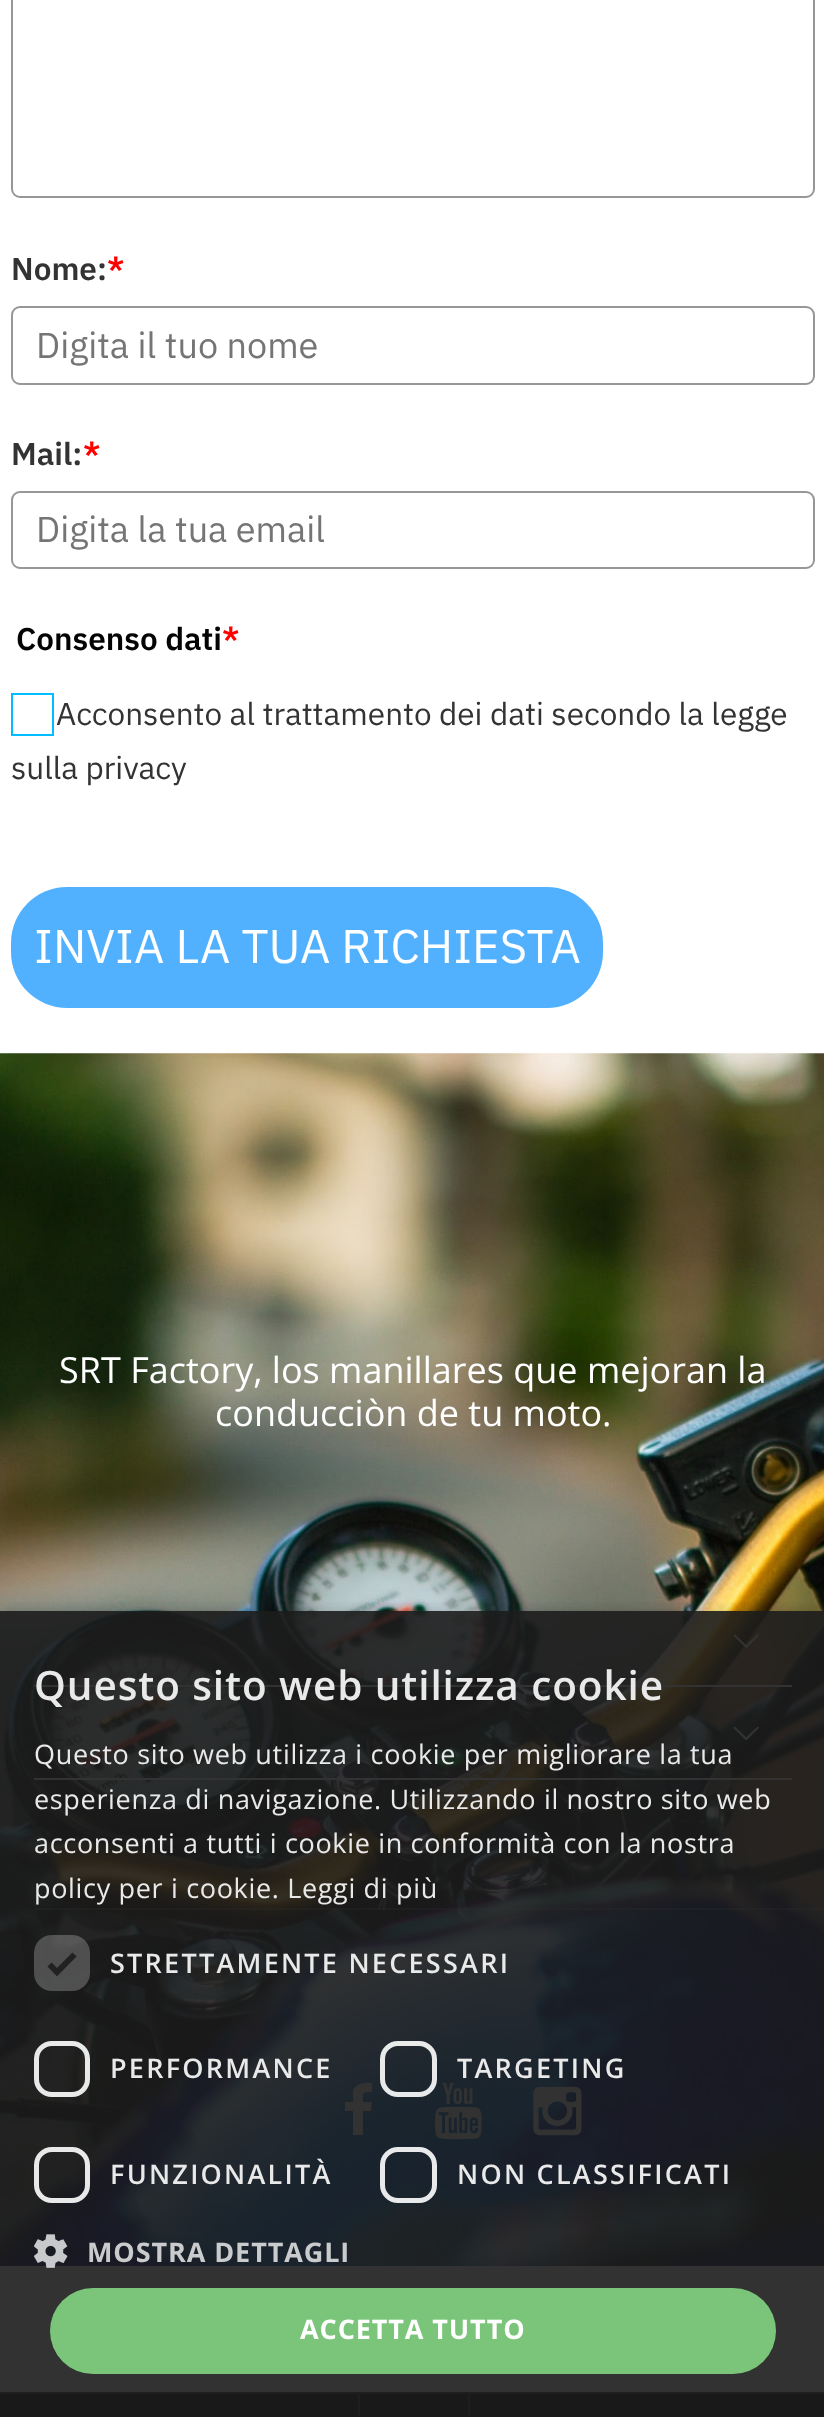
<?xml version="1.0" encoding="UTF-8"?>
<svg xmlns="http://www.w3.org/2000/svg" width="824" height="2417">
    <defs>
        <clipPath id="clip1"><rect x="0" y="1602" width="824" height="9"/></clipPath>
        <filter id="blur1" x="-50%" y="-200%" width="200%" height="500%"><feGaussianBlur stdDeviation="9"/></filter>
    </defs>
    <rect width="100%" height="100%" fill="#FFFFFF"/>
    <rect x="12" y="-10" width="802" height="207" rx="8" fill="none" stroke="#979797" stroke-width="2"/>
    <text x="11" y="280" font-family="IBM Plex Sans" font-size="31.5" font-weight="600" fill="#333333">Nome:</text>
    <text x="107" y="280" font-family="IBM Plex Sans" font-size="31.5" font-weight="600" fill="#FF0000">*</text>
    <rect x="12" y="307" width="802" height="77" rx="8" fill="none" stroke="#979797" stroke-width="2"/>
    <text x="36" y="358" font-family="IBM Plex Sans" font-size="36" fill="#757575">Digita il tuo nome</text>
    <text x="11" y="465" font-family="IBM Plex Sans" font-size="31.5" font-weight="600" fill="#333333">Mail:</text>
    <text x="83" y="465" font-family="IBM Plex Sans" font-size="31.5" font-weight="600" fill="#FF0000">*</text>
    <rect x="12" y="492" width="802" height="76" rx="8" fill="none" stroke="#979797" stroke-width="2"/>
    <text x="36" y="542" font-family="IBM Plex Sans" font-size="36" fill="#757575">Digita la tua email</text>
    <text x="16" y="650" font-family="IBM Plex Sans" font-size="31.5" font-weight="600" fill="#030303">Consenso dati</text>
    <text x="222" y="650" font-family="IBM Plex Sans" font-size="31.5" font-weight="600" fill="#FF0000">*</text>
    <rect x="12" y="694" width="41" height="41" fill="none" stroke="#00BDFF" stroke-width="2"/>
    <text x="56" y="725" font-family="IBM Plex Sans" font-size="31.5" fill="#333333">Acconsento al trattamento dei dati secondo la legge</text>
    <text x="11" y="779" font-family="IBM Plex Sans" font-size="31.5" fill="#333333">sulla privacy</text>
    <rect x="11" y="887" width="592" height="121" rx="56" fill="#52B1FF"/>
    <text x="34" y="963" font-family="IBM Plex Sans" font-size="47.25" fill="#FFFFFF">INVIA LA TUA RICHIESTA</text>
    <image x="0" y="1053" width="824" height="1213" href="img_01.png"/>
    <text x="59" y="1383" font-family="Open Sans" font-size="36" fill="#FFFFFF">SRT Factory, los manillares que mejoran la</text>
    <text x="215" y="1426" font-family="Open Sans" font-size="36" fill="#FFFFFF">conducciòn de tu moto.</text>
    <rect x="34" y="1685" width="758" height="2" fill="#FFFFFF"/>
    <image x="733" y="1634" width="26" height="14" href="img_02.png"/>
    <rect x="34" y="1778" width="758" height="2" fill="#FFFFFF"/>
    <image x="733" y="1726" width="26" height="15" href="img_03.png"/>
    <rect x="34" y="1908" width="790" height="2" fill="#FFFFFF" fill-opacity="0.2"/>
    <path d="M 345 2111 V 2102 H 353 V 2091 C 356 2083 365 2082 372 2083 V 2092 C 362 2092 363 2092 363 2102 H 372 L 371 2111 H 363 V 2135 H 353 V 2111 Z" fill="#FFFFFF"/>
    <image x="435" y="2082" width="47" height="58" href="img_04.png"/>
    <image x="533" y="2086" width="49" height="50" href="img_05.png"/>
    <rect x="0" y="2394" width="824" height="23" fill="#030404"/>
    <rect x="0" y="2392" width="824" height="2" fill="#353636"/>
    <rect x="468" y="2394" width="2" height="23" fill="#353636"/>
    <rect x="358" y="2394" width="2" height="23" fill="#353636"/>
    <g clip-path="url(#clip1)">
        <rect x="2" y="1616" width="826" height="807" fill="#000000" fill-opacity="0.32" filter="url(#blur1)"/>
    </g>
    <rect x="0" y="1611" width="824" height="806" fill="#1C1C1C" fill-opacity="0.9"/>
    <text x="34" y="1700" font-family="Open Sans" font-size="40.5" font-weight="600" letter-spacing="0.9" fill="#E9E9E9">Questo sito web utilizza cookie</text>
    <text font-family="Open Sans" font-size="27" letter-spacing="0.67" fill="#E9E9E9">
        <tspan x="34" y="1764">Questo sito web utilizza i cookie per migliorare la tua</tspan>
        <tspan x="34" y="1809">esperienza di navigazione. Utilizzando il nostro sito web</tspan>
        <tspan x="34" y="1853">acconsenti a tutti i cookie in conformità con la nostra</tspan>
        <tspan x="34" y="1898">policy per i cookie. Leggi di più</tspan>
    </text>
    <rect x="34" y="1935" width="56" height="56" rx="18" fill="#FFFFFF" fill-opacity="0.23"/>
    <path d="M 49.5 1964.5 L 57 1972 L 74.5 1954.5" fill="none" stroke="#212121" stroke-width="5.9"/>
    <text x="110" y="1973" font-family="Open Sans" font-size="27" font-weight="600" letter-spacing="2.25" fill="#E9E9E9">STRETTAMENTE NECESSARI</text>
    <rect x="36.5" y="2043.5" width="51" height="51" rx="15.5" fill="none" stroke="#FFFFFF" stroke-opacity="0.9" stroke-width="5"/>
    <text x="110" y="2078" font-family="Open Sans" font-size="27" font-weight="600" letter-spacing="2.25" fill="#E9E9E9">PERFORMANCE</text>
    <rect x="382.5" y="2043.5" width="52" height="51" rx="15.5" fill="none" stroke="#FFFFFF" stroke-opacity="0.9" stroke-width="5"/>
    <text x="457" y="2078" font-family="Open Sans" font-size="27" font-weight="600" letter-spacing="2.25" fill="#E9E9E9">TARGETING</text>
    <rect x="36.5" y="2149.5" width="51" height="51" rx="15.5" fill="none" stroke="#FFFFFF" stroke-opacity="0.9" stroke-width="5"/>
    <text x="110" y="2184" font-family="Open Sans" font-size="27" font-weight="600" letter-spacing="2.25" fill="#E9E9E9">FUNZIONALITÀ</text>
    <rect x="382.5" y="2149.5" width="52" height="51" rx="15.5" fill="none" stroke="#FFFFFF" stroke-opacity="0.9" stroke-width="5"/>
    <text x="457" y="2184" font-family="Open Sans" font-size="27" font-weight="600" letter-spacing="2.25" fill="#E9E9E9">NON CLASSIFICATI</text>
    <image x="34" y="2234" width="34" height="34" href="img_06.png"/>
    <text x="87" y="2262" font-family="Open Sans" font-size="27" font-weight="700" letter-spacing="0.9" fill="#C9CBCD">MOSTRA DETTAGLI</text>
    <rect x="50" y="2288" width="726" height="86" rx="43" fill="#7AC57A"/>
    <text x="300" y="2339" font-family="Open Sans" font-size="27" font-weight="700" letter-spacing="0.9" fill="#FFFFFF">ACCETTA TUTTO</text>
</svg>
